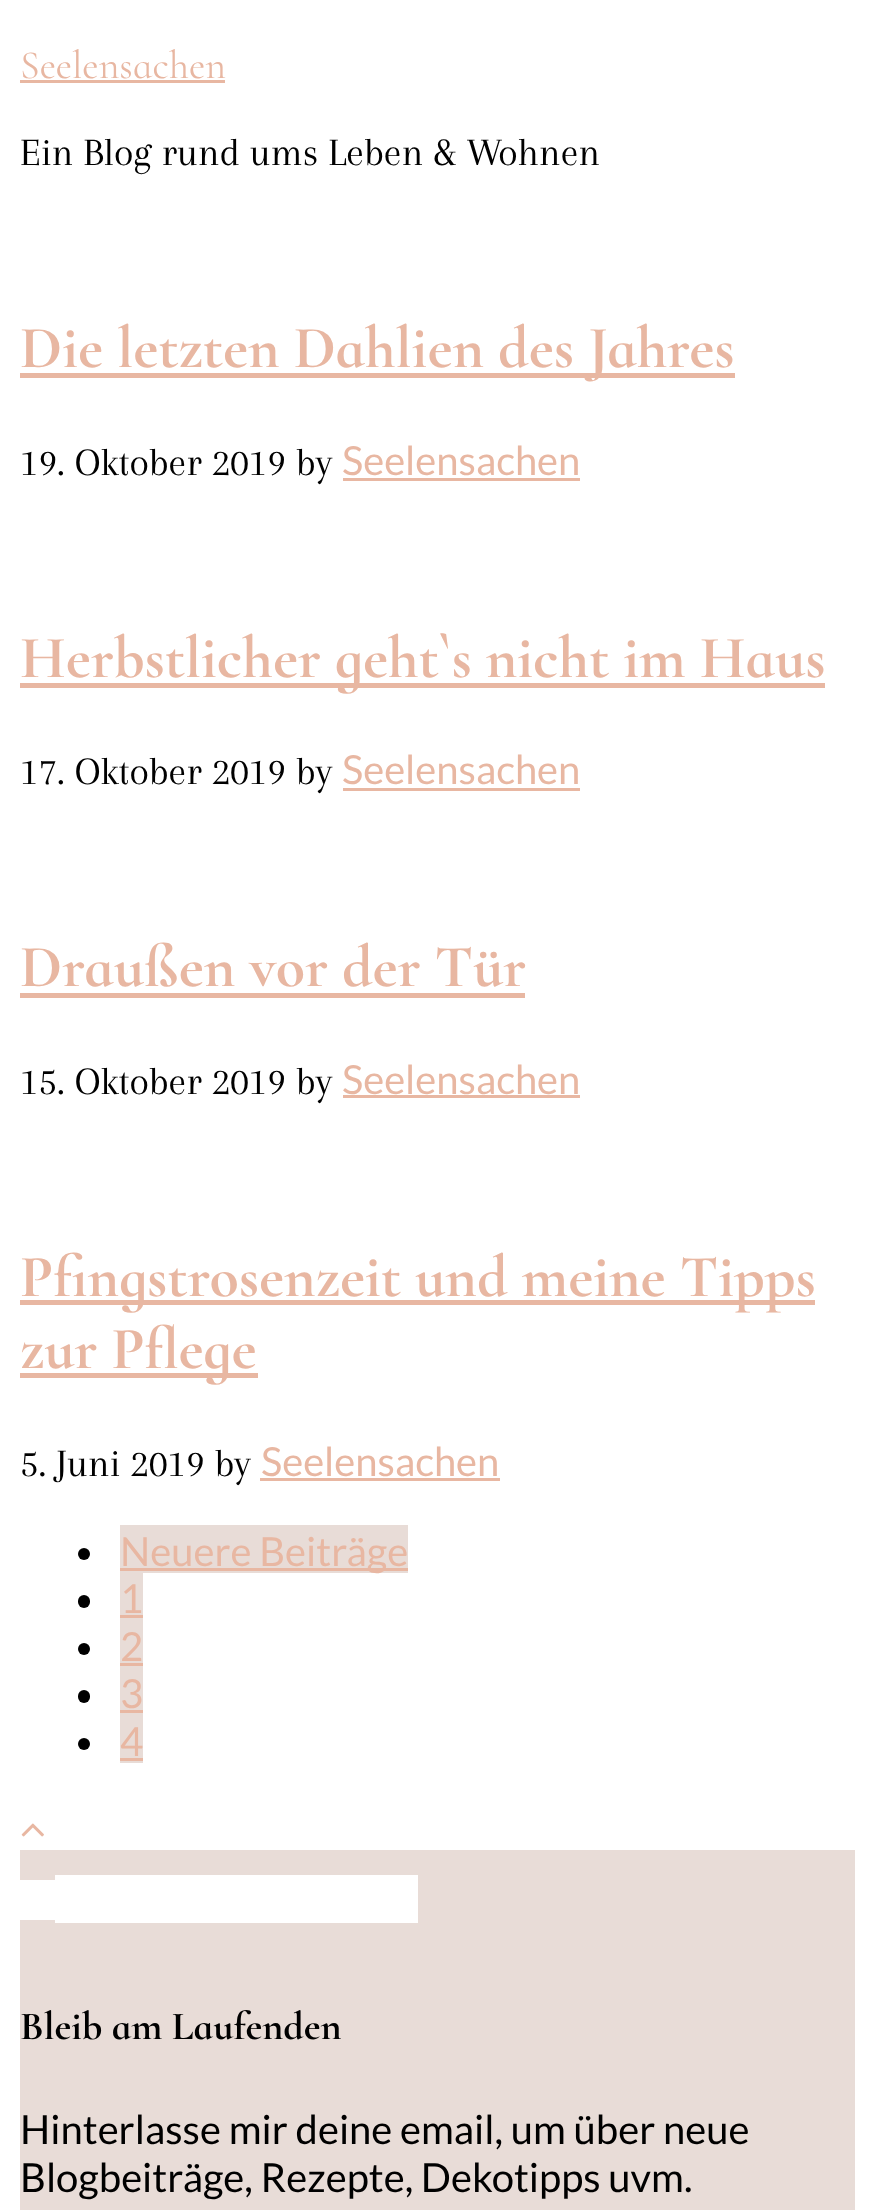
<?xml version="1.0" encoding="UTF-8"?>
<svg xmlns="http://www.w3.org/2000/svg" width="875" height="2210">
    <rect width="100%" height="100%" fill="#FFFFFF"/>
    <text x="20" y="78" font-family="Cormorant Infant" font-size="40" fill="#E8B7A2">Seelensachen</text>
    <rect x="20" y="80" width="205" height="3" fill="#E8B7A2"/>
    <text x="20" y="165" font-family="Arapey" font-size="40" fill="#000000">Ein Blog rund ums Leben &amp; Wohnen</text>
    <rect x="20" y="373" width="715" height="5" fill="#E8B7A2"/>
    <text x="20" y="367" font-family="Cormorant Infant" font-size="60" font-weight="700" fill="#E8B7A2">Die letzten Dahlien des Jahres</text>
    <text x="20" y="475" font-family="Arapey" font-size="40" fill="#000000">19. Oktober 2019 by</text>
    <text x="342" y="475" font-family="Lato" font-size="40" fill="#E8B7A2">Seelensachen</text>
    <rect x="343" y="478" width="237" height="3" fill="#E8B7A2"/>
    <rect x="20" y="683" width="805" height="5" fill="#E8B7A2"/>
    <text x="20" y="677" font-family="Cormorant Infant" font-size="60" font-weight="700" fill="#E8B7A2">Herbstlicher geht`s nicht im Haus</text>
    <text x="20" y="784" font-family="Arapey" font-size="40" fill="#000000">17. Oktober 2019 by</text>
    <text x="342" y="784" font-family="Lato" font-size="40" fill="#E8B7A2">Seelensachen</text>
    <rect x="343" y="788" width="237" height="3" fill="#E8B7A2"/>
    <text x="20" y="986" font-family="Cormorant Infant" font-size="60" font-weight="700" fill="#E8B7A2">Draußen vor der Tür</text>
    <rect x="20" y="993" width="505" height="5" fill="#E8B7A2"/>
    <text x="20" y="1094" font-family="Arapey" font-size="40" fill="#000000">15. Oktober 2019 by</text>
    <text x="342" y="1094" font-family="Lato" font-size="40" fill="#E8B7A2">Seelensachen</text>
    <rect x="343" y="1095" width="237" height="3" fill="#E8B7A2"/>
    <rect x="20" y="1300" width="795" height="5" fill="#E8B7A2"/>
    <text x="20" y="1296" font-family="Cormorant Infant" font-size="60" font-weight="700" fill="#E8B7A2">Pfingstrosenzeit und meine Tipps</text>
    <rect x="20" y="1373" width="238" height="5" fill="#E8B7A2"/>
    <text x="20" y="1368" font-family="Cormorant Infant" font-size="60" font-weight="700" fill="#E8B7A2">zur Pflege</text>
    <text x="20" y="1476" font-family="Arapey" font-size="40" fill="#000000">5. Juni 2019 by</text>
    <text x="261" y="1476" font-family="Lato" font-size="40" fill="#E8B7A2">Seelensachen</text>
    <rect x="260" y="1478" width="240" height="3" fill="#E8B7A2"/>
    <circle cx="84" cy="1554" r="6" fill="#000000"/>
    <rect x="120" y="1525" width="288" height="48" fill="#E8DCD7"/>
    <rect x="120" y="1568" width="288" height="3" fill="#E8B7A2"/>
    <text x="120" y="1566" font-family="Lato" font-size="40" fill="#E8B7A2">Neuere Beiträge</text>
    <rect x="78" y="1595" width="12" height="13" rx="6" fill="#000000"/>
    <rect x="120" y="1573" width="23" height="190" fill="#E8DCD7"/>
    <text x="120" y="1613" font-family="Lato" font-size="40" fill="#E8B7A2">1</text>
    <rect x="120" y="1615" width="23" height="3" fill="#E8B7A2"/>
    <circle cx="84" cy="1649" r="6" fill="#000000"/>
    <text x="120" y="1661" font-family="Lato" font-size="40" fill="#E8B7A2">2</text>
    <rect x="120" y="1663" width="23" height="3" fill="#E8B7A2"/>
    <rect x="78" y="1690" width="12" height="13" rx="6" fill="#000000"/>
    <text x="120" y="1708" font-family="Lato" font-size="40" fill="#E8B7A2">3</text>
    <rect x="120" y="1710" width="23" height="3" fill="#E8B7A2"/>
    <circle cx="84" cy="1744" r="6" fill="#000000"/>
    <text x="120" y="1756" font-family="Lato" font-size="40" fill="#E8B7A2">4</text>
    <rect x="120" y="1758" width="23" height="3" fill="#E8B7A2"/>
    <image x="21" y="1823" width="23" height="14" href="img_01.png"/>
    <rect x="20" y="1850" width="835" height="360" fill="#E8DCD7"/>
    <rect x="20" y="1880" width="35" height="40" fill="#FFFFFF"/>
    <rect x="55" y="1875" width="363" height="48" fill="#FFFFFF"/>
    <text x="20" y="2039" font-family="Cormorant Infant" font-size="40" font-weight="700" fill="#000000">Bleib am Laufenden</text>
    <text font-family="Lato" font-size="40" fill="#000000">
        <tspan x="20" y="2144">Hinterlasse mir deine email, um über neue</tspan>
        <tspan x="20" y="2192">Blogbeiträge, Rezepte, Dekotipps uvm.</tspan>
    </text>
</svg>
